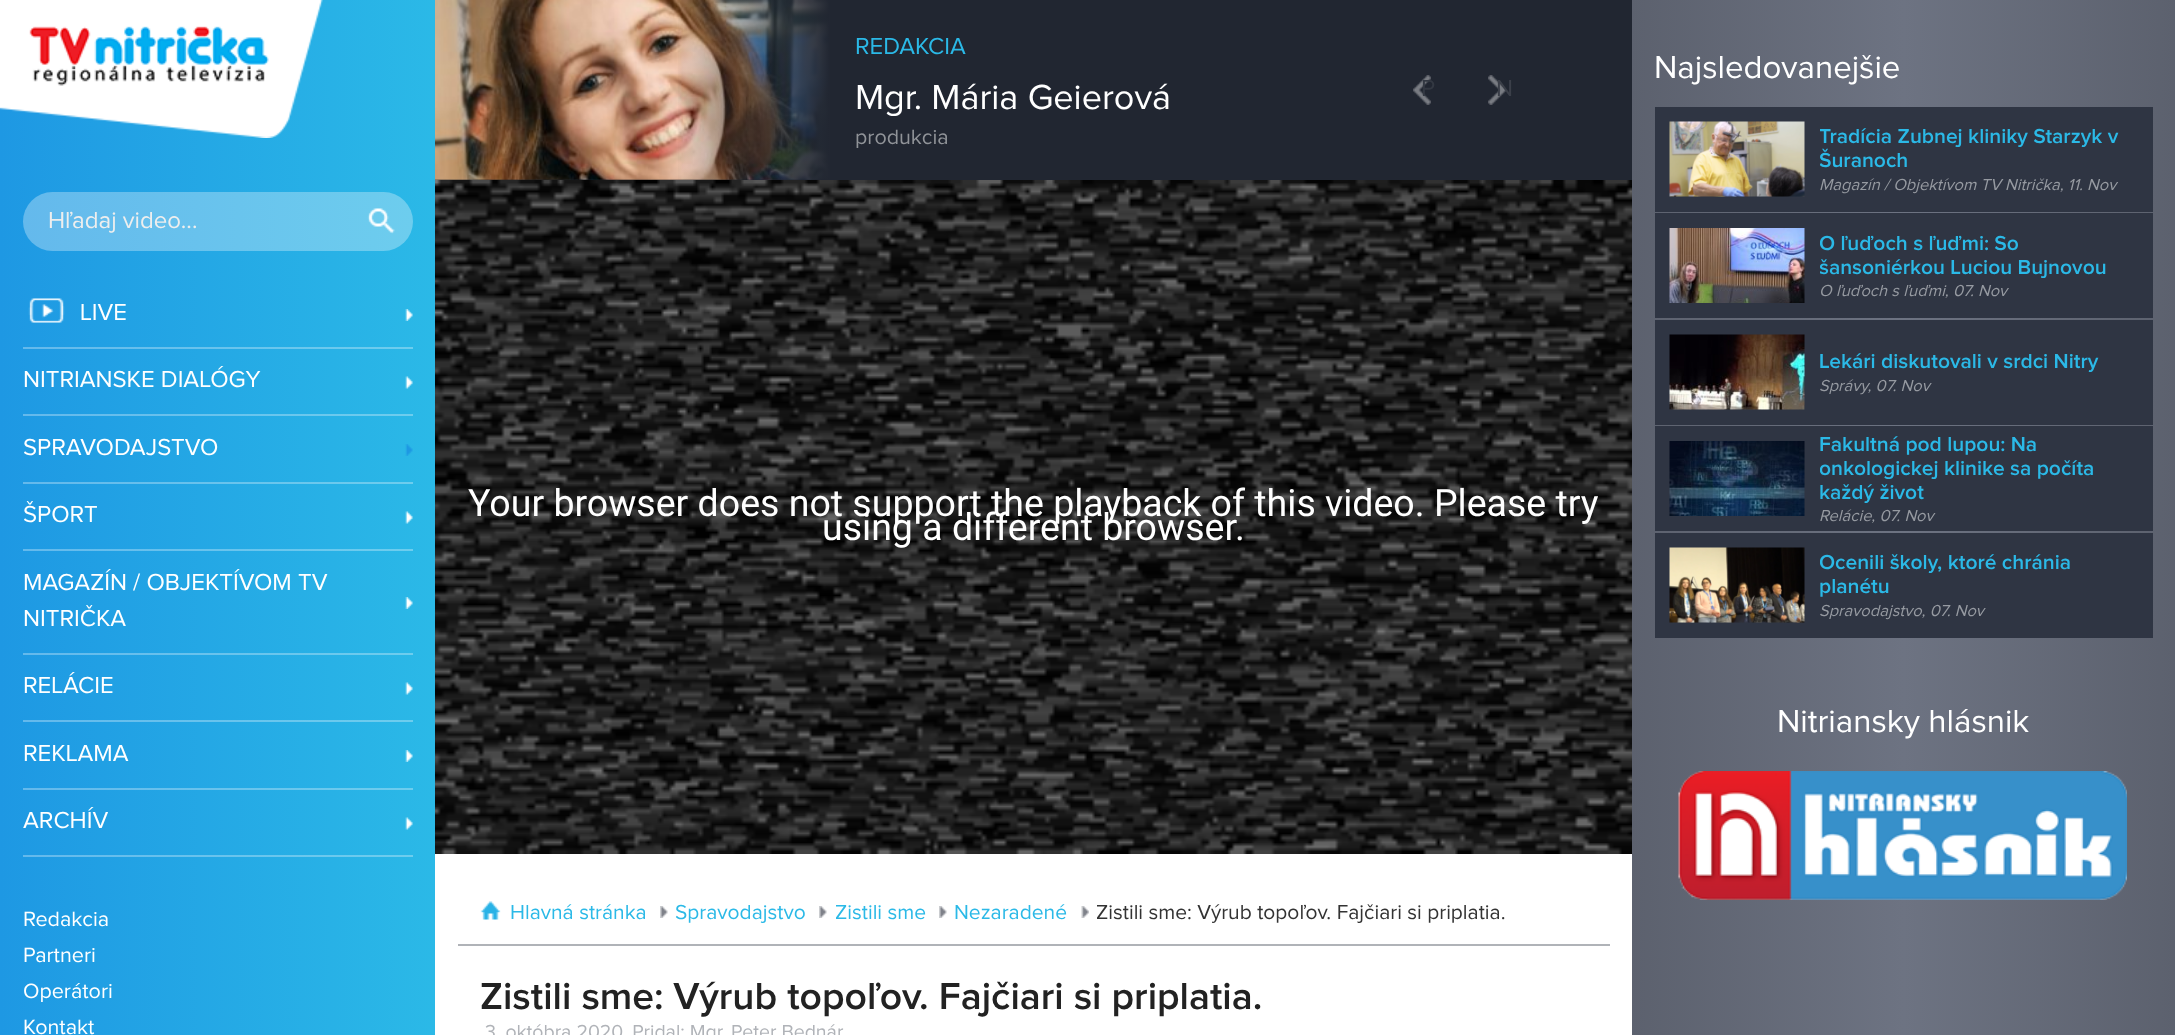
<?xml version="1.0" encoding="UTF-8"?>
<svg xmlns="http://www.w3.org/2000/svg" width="2175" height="1035">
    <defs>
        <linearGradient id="g1" gradientUnits="userSpaceOnUse" x1="0" y1="644" x2="435" y2="644"><stop offset="0" stop-color="#1E98E3"/><stop offset="1" stop-color="#2BB9E7"/></linearGradient>
        <linearGradient id="g2" gradientUnits="userSpaceOnUse" x1="23" y1="221" x2="413" y2="221"><stop offset="0" stop-color="#64B9EC"/><stop offset="1" stop-color="#6DCDEE"/></linearGradient>
        <linearGradient id="g3" gradientUnits="userSpaceOnUse" x1="23" y1="347" x2="413" y2="347"><stop offset="0" stop-color="#64B9EC"/><stop offset="1" stop-color="#6DCDEE"/></linearGradient>
        <linearGradient id="g4" gradientUnits="userSpaceOnUse" x1="23" y1="415" x2="413" y2="415"><stop offset="0" stop-color="#64B9EC"/><stop offset="1" stop-color="#6DCDEE"/></linearGradient>
        <linearGradient id="g5" gradientUnits="userSpaceOnUse" x1="23" y1="482" x2="413" y2="482"><stop offset="0" stop-color="#64B9EC"/><stop offset="1" stop-color="#6DCDEE"/></linearGradient>
        <linearGradient id="g6" gradientUnits="userSpaceOnUse" x1="23" y1="550" x2="413" y2="550"><stop offset="0" stop-color="#64B9EC"/><stop offset="1" stop-color="#6DCDEE"/></linearGradient>
        <linearGradient id="g7" gradientUnits="userSpaceOnUse" x1="23" y1="653" x2="413" y2="653"><stop offset="0" stop-color="#64B9EC"/><stop offset="1" stop-color="#6DCDEE"/></linearGradient>
        <linearGradient id="g8" gradientUnits="userSpaceOnUse" x1="23" y1="721" x2="413" y2="721"><stop offset="0" stop-color="#64B9EC"/><stop offset="1" stop-color="#6DCDEE"/></linearGradient>
        <linearGradient id="g9" gradientUnits="userSpaceOnUse" x1="23" y1="788" x2="413" y2="788"><stop offset="0" stop-color="#64B9EC"/><stop offset="1" stop-color="#6DCDEE"/></linearGradient>
        <linearGradient id="g10" gradientUnits="userSpaceOnUse" x1="23" y1="856" x2="413" y2="856"><stop offset="0" stop-color="#64B9EC"/><stop offset="1" stop-color="#6DCDEE"/></linearGradient>
        <linearGradient id="g11" gradientUnits="userSpaceOnUse" x1="435" y1="90" x2="1632" y2="90"><stop offset="0" stop-color="#212631" stop-opacity="0"/><stop offset="0.2" stop-color="#212631" stop-opacity="0"/><stop offset="0.33" stop-color="#212631"/><stop offset="1" stop-color="#212631"/></linearGradient>
        <linearGradient id="g12" gradientUnits="userSpaceOnUse" x1="1632" y1="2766" x2="2175" y2="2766"><stop offset="0" stop-color="#5C616E"/><stop offset="0.5" stop-color="#6D7382"/><stop offset="1" stop-color="#5C616E"/></linearGradient>
        <clipPath id="clip1"><rect x="1820" y="126" width="303" height="48"/></clipPath>
        <clipPath id="clip2"><rect x="1820" y="233" width="303" height="48"/></clipPath>
        <clipPath id="clip3"><rect x="1820" y="434" width="303" height="72"/></clipPath>
        <clipPath id="clip4"><rect x="1820" y="552" width="303" height="48"/></clipPath>
    </defs>
    <rect width="100%" height="100%" fill="#FFFFFF"/>
    <rect x="0" y="0" width="435" height="1035" fill="url(#g1)"/>
    <image x="0" y="0" width="323" height="138" href="img_01.png"/>
    <rect x="23" y="192" width="390" height="59" rx="29.5" fill="url(#g2)"/>
    <text x="48" y="228" font-family="Proxima Nova" font-size="24" fill="#EEEEEE">Hľadaj video...</text>
    <image x="367" y="208" width="28" height="26" href="img_02.png"/>
    <image x="28" y="298" width="37" height="25" href="img_03.png"/>
    <text x="80" y="320" font-family="Proxima Nova" font-size="24" fill="#FFFFFF">LIVE</text>
    <image x="405" y="309" width="8" height="12" href="img_04.png"/>
    <rect x="23" y="347" width="390" height="2" fill="url(#g3)"/>
    <text x="23" y="387" font-family="Proxima Nova" font-size="24" fill="#FFFFFF">NITRIANSKE DIALÓGY</text>
    <image x="405" y="376" width="8" height="13" href="img_05.png"/>
    <rect x="23" y="414" width="390" height="2" fill="url(#g4)"/>
    <text x="23" y="455" font-family="Proxima Nova" font-size="24" fill="#FFFFFF">SPRAVODAJSTVO</text>
    <image x="405" y="444" width="8" height="12" href="img_06.png"/>
    <rect x="23" y="482" width="390" height="2" fill="url(#g5)"/>
    <text x="23" y="522" font-family="Proxima Nova" font-size="24" fill="#FFFFFF">ŠPORT</text>
    <image x="405" y="511" width="8" height="13" href="img_05.png"/>
    <rect x="23" y="549" width="390" height="2" fill="url(#g6)"/>
    <text x="23" y="590" font-family="Proxima Nova" font-size="24" fill="#FFFFFF">MAGAZÍN / OBJEKTÍVOM TV</text>
    <image x="405" y="597" width="8" height="12" href="img_04.png"/>
    <text x="23" y="626" font-family="Proxima Nova" font-size="24" fill="#FFFFFF">NITRIČKA</text>
    <rect x="23" y="653" width="390" height="2" fill="url(#g7)"/>
    <text x="23" y="693" font-family="Proxima Nova" font-size="24" fill="#FFFFFF">RELÁCIE</text>
    <image x="405" y="682" width="8" height="13" href="img_05.png"/>
    <rect x="23" y="720" width="390" height="2" fill="url(#g8)"/>
    <text x="23" y="761" font-family="Proxima Nova" font-size="24" fill="#FFFFFF">REKLAMA</text>
    <image x="405" y="750" width="8" height="12" href="img_04.png"/>
    <rect x="23" y="788" width="390" height="2" fill="url(#g9)"/>
    <text x="23" y="828" font-family="Proxima Nova" font-size="24" fill="#FFFFFF">ARCHÍV</text>
    <image x="405" y="817" width="8" height="13" href="img_05.png"/>
    <rect x="23" y="855" width="390" height="2" fill="url(#g10)"/>
    <text font-family="Proxima Nova" font-size="21.5" fill="#FFFFFF">
        <tspan x="23" y="926">Redakcia</tspan>
        <tspan x="23" y="962">Partneri</tspan>
        <tspan x="23" y="998">Operátori</tspan>
        <tspan x="23" y="1034">Kontakt</tspan>
    </text>
    <rect x="435" y="179" width="394" height="1" fill="#212631"/>
    <image x="435" y="0" width="394" height="180" href="img_07.png"/>
    <rect x="678" y="0" width="954" height="180" fill="url(#g11)"/>
    <text x="855" y="54" font-family="Proxima Nova" font-size="24" fill="#2BB9E7">REDAKCIA</text>
    <text x="855" y="109" font-family="Proxima Nova" font-size="36" fill="#FFFFFF">Mgr. Mária Geierová</text>
    <text x="855" y="144" font-family="Proxima Nova" font-size="21.5" fill="#909398">produkcia</text>
    <image x="1413" y="75" width="18" height="30" href="img_08.png"/>
    <text x="1421" y="96" font-family="Proxima Nova" font-size="24" fill="#333842">P</text>
    <image x="1488" y="75" width="18" height="30" href="img_09.png"/>
    <text x="1496" y="96" font-family="Proxima Nova" font-size="24" fill="#3B3F49">N</text>
    <rect x="435" y="180" width="1197" height="674" fill="#777777"/>
    <image x="435" y="180" width="1197" height="674" href="img_10.png"/>
    <text x="468" y="516" font-family="Roboto" font-size="37.5" fill="#FFFFFF">Your browser does not support the playback of this video. Please try</text>
    <text x="822" y="540" font-family="Roboto" font-size="37.5" fill="#FFFFFF">using a different browser.</text>
    <rect x="458" y="944" width="1152" height="2" fill="#B0B3B8"/>
    <image x="480" y="901" width="21" height="19" href="img_11.png"/>
    <text x="510" y="919" font-family="Proxima Nova" font-size="21" fill="#2BB9E7">Hlavná stránka</text>
    <image x="660" y="906" width="8" height="12" href="img_12.png"/>
    <text x="675" y="919" font-family="Proxima Nova" font-size="21" fill="#2BB9E7">Spravodajstvo</text>
    <image x="819" y="906" width="8" height="12" href="img_12.png"/>
    <text x="835" y="919" font-family="Proxima Nova" font-size="21" fill="#2BB9E7">Zistili sme</text>
    <image x="939" y="906" width="8" height="12" href="img_12.png"/>
    <text x="954" y="919" font-family="Proxima Nova" font-size="21" fill="#2BB9E7">Nezaradené</text>
    <image x="1081" y="906" width="8" height="12" href="img_13.png"/>
    <text x="1096" y="919" font-family="Proxima Nova" font-size="21" fill="#333333">Zistili sme: Výrub topoľov. Fajčiari si priplatia.</text>
    <text x="480" y="1009" font-family="Proxima Nova" font-size="39" font-weight="600" fill="#222222">Zistili sme: Výrub topoľov. Fajčiari si priplatia.</text>
    <text x="485" y="1038" font-family="Proxima Nova" font-size="19.5" fill="#B0B3B8">3. októbra 2020, Pridal: Mgr. Peter Bednár</text>
    <rect x="1632" y="0" width="543" height="1035" fill="url(#g12)"/>
    <text x="1654" y="78" font-family="Proxima Nova" font-size="33" fill="#FFFFFF">Najsledovanejšie</text>
    <rect x="1655" y="107" width="498" height="105" fill="#2F3543"/>
    <image x="1669" y="121" width="136" height="76" href="img_14.png"/>
    <g clip-path="url(#clip1)">
        <text font-family="Proxima Nova" font-size="21" font-weight="600" fill="#2BB9E7">
            <tspan x="1819" y="143">Tradícia Zubnej kliniky Starzyk v</tspan>
            <tspan x="1819" y="167">Šuranoch</tspan>
        </text>
    </g>
    <text x="1819" y="190" font-family="Proxima Nova" font-size="16.5" font-style="italic" fill="#969AA1">Magazín / Objektívom TV Nitrička, 11. Nov</text>
    <rect x="1655" y="213" width="498" height="105" fill="#2F3543"/>
    <image x="1669" y="228" width="136" height="75" href="img_15.png"/>
    <g clip-path="url(#clip2)">
        <text font-family="Proxima Nova" font-size="21" font-weight="600" fill="#2BB9E7">
            <tspan x="1819" y="250">O ľuďoch s ľuďmi: So</tspan>
            <tspan x="1819" y="274">šansoniérkou Luciou Bujnovou</tspan>
        </text>
    </g>
    <text x="1819" y="296" font-family="Proxima Nova" font-size="16.5" font-style="italic" fill="#969AA1">O ľuďoch s ľuďmi, 07. Nov</text>
    <rect x="1655" y="320" width="498" height="105" fill="#2F3543"/>
    <image x="1669" y="334" width="136" height="76" href="img_16.png"/>
    <text x="1819" y="368" font-family="Proxima Nova" font-size="21" font-weight="600" fill="#2BB9E7">Lekári diskutovali v srdci Nitry</text>
    <text x="1819" y="391" font-family="Proxima Nova" font-size="16.5" font-style="italic" fill="#969AA1">Správy, 07. Nov</text>
    <rect x="1655" y="426" width="498" height="105" fill="#2F3543"/>
    <image x="1669" y="441" width="136" height="75" href="img_17.png"/>
    <text x="1819" y="451" font-family="Proxima Nova" font-size="21" font-weight="600" fill="#2BB9E7">Fakultná pod lupou: Na</text>
    <g clip-path="url(#clip3)">
        <text x="1819" y="475" font-family="Proxima Nova" font-size="21" font-weight="600" fill="#2BB9E7">onkologickej klinike sa počíta</text>
    </g>
    <text x="1819" y="499" font-family="Proxima Nova" font-size="21" font-weight="600" fill="#2BB9E7">každý život</text>
    <text x="1819" y="521" font-family="Proxima Nova" font-size="16.5" font-style="italic" fill="#969AA1">Relácie, 07. Nov</text>
    <rect x="1655" y="533" width="498" height="105" fill="#2F3543"/>
    <image x="1669" y="547" width="136" height="76" href="img_18.png"/>
    <g clip-path="url(#clip4)">
        <text x="1819" y="569" font-family="Proxima Nova" font-size="21" font-weight="600" fill="#2BB9E7">Ocenili školy, ktoré chránia</text>
    </g>
    <text x="1819" y="593" font-family="Proxima Nova" font-size="21" font-weight="600" fill="#2BB9E7">planétu</text>
    <text x="1819" y="616" font-family="Proxima Nova" font-size="16.5" font-style="italic" fill="#969AA1">Spravodajstvo, 07. Nov</text>
    <text x="1777" y="732" font-family="Proxima Nova" font-size="33" fill="#FFFFFF">Nitriansky hlásnik</text>
    <image x="1678" y="771" width="449" height="129" href="img_19.png"/>
</svg>
